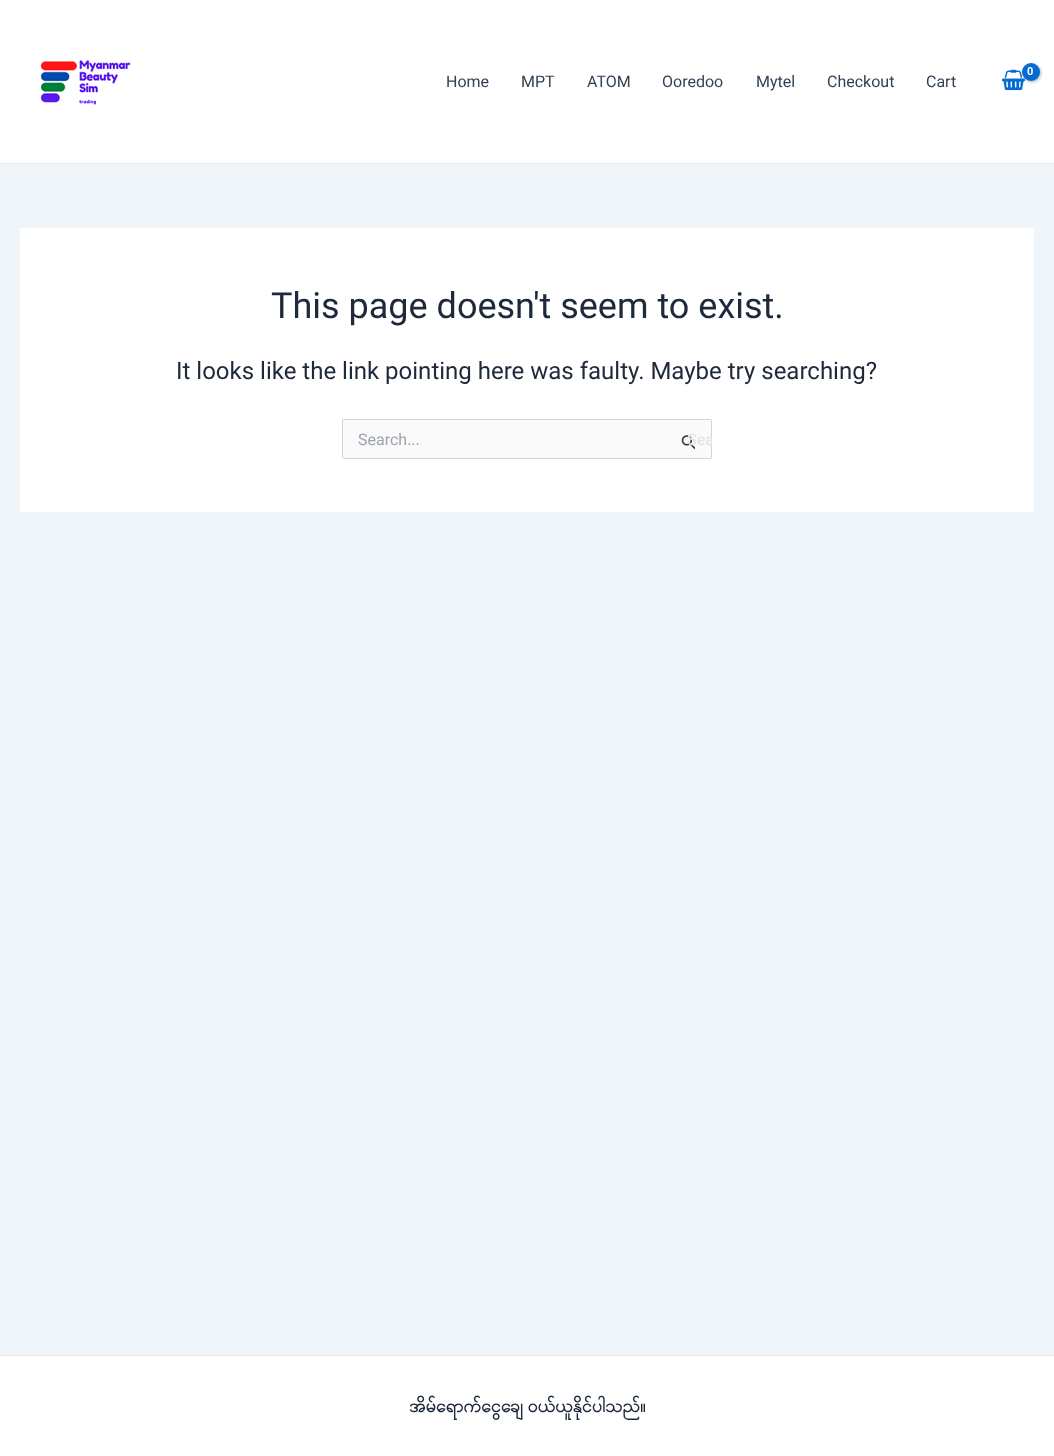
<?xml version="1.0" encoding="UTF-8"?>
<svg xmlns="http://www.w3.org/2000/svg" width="1054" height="1456">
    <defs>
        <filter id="blur1" x="-50%" y="-200%" width="200%" height="500%"><feGaussianBlur stdDeviation="1.5"/></filter>
        <clipPath id="clip1"><rect x="667" y="419" width="45" height="42" rx="2"/></clipPath>
    </defs>
    <rect width="100%" height="100%" fill="#F0F5FA"/>
    <rect x="0" y="0" width="1054" height="163" fill="#FFFFFF"/>
    <rect x="0" y="163" width="1054" height="1" fill="#EAEAEA"/>
    <image x="40" y="60" width="91" height="45" href="img_01.png"/>
    <image x="1001" y="69" width="24" height="22" href="img_02.png"/>
    <rect x="1023" y="64" width="18" height="18" rx="9" fill="#000000" fill-opacity="0.3" filter="url(#blur1)"/>
    <circle cx="1031" cy="72" r="9" fill="#046BD2"/>
    <text x="1027" y="75" font-family="Roboto" font-size="11" font-weight="700" fill="#FFFFFF">0</text>
    <text x="446" y="87" font-family="Roboto" font-size="16" fill="#334155">Home</text>
    <text x="521" y="87" font-family="Roboto" font-size="16" fill="#334155">MPT</text>
    <text x="587" y="87" font-family="Roboto" font-size="16" fill="#334155">ATOM</text>
    <text x="662" y="87" font-family="Roboto" font-size="16" fill="#334155">Ooredoo</text>
    <text x="756" y="87" font-family="Roboto" font-size="16" fill="#334155">Mytel</text>
    <text x="827" y="87" font-family="Roboto" font-size="16" fill="#334155">Checkout</text>
    <text x="926" y="87" font-family="Roboto" font-size="16" fill="#334155">Cart</text>
    <rect x="20" y="228" width="1014" height="284" fill="#FFFFFF"/>
    <text x="271" y="318" font-family="Roboto" font-size="36" fill="#1E293B">This page doesn't seem to exist.</text>
    <text x="176" y="379" font-family="Roboto" font-size="24" fill="#1E293B">It looks like the link pointing here was faulty. Maybe try searching?</text>
    <rect x="342.5" y="419.5" width="369" height="39" rx="1.5" fill="#FAFAFA" stroke="#D1D5DB"/>
    <text x="358" y="445" font-family="Roboto" font-size="16" fill="#9CA3AF">Search...</text>
    <image x="681" y="435" width="14" height="15" href="img_03.png"/>
    <g clip-path="url(#clip1)">
        <text x="687" y="445" font-family="Roboto" font-size="16" font-weight="500" fill="#E5E5E5">Sea</text>
    </g>
    <rect x="0" y="1356" width="1054" height="100" fill="#FFFFFF"/>
    <rect x="0" y="1355" width="1054" height="1" fill="#EAEAEA"/>
    <text x="409" y="1412" word-spacing="-2" font-family="Padauk" font-size="18" font-weight="700" fill="#1E293B">အိမ်ရောက်ငွေချေ ဝယ်ယူနိုင်ပါသည်။</text>
</svg>
